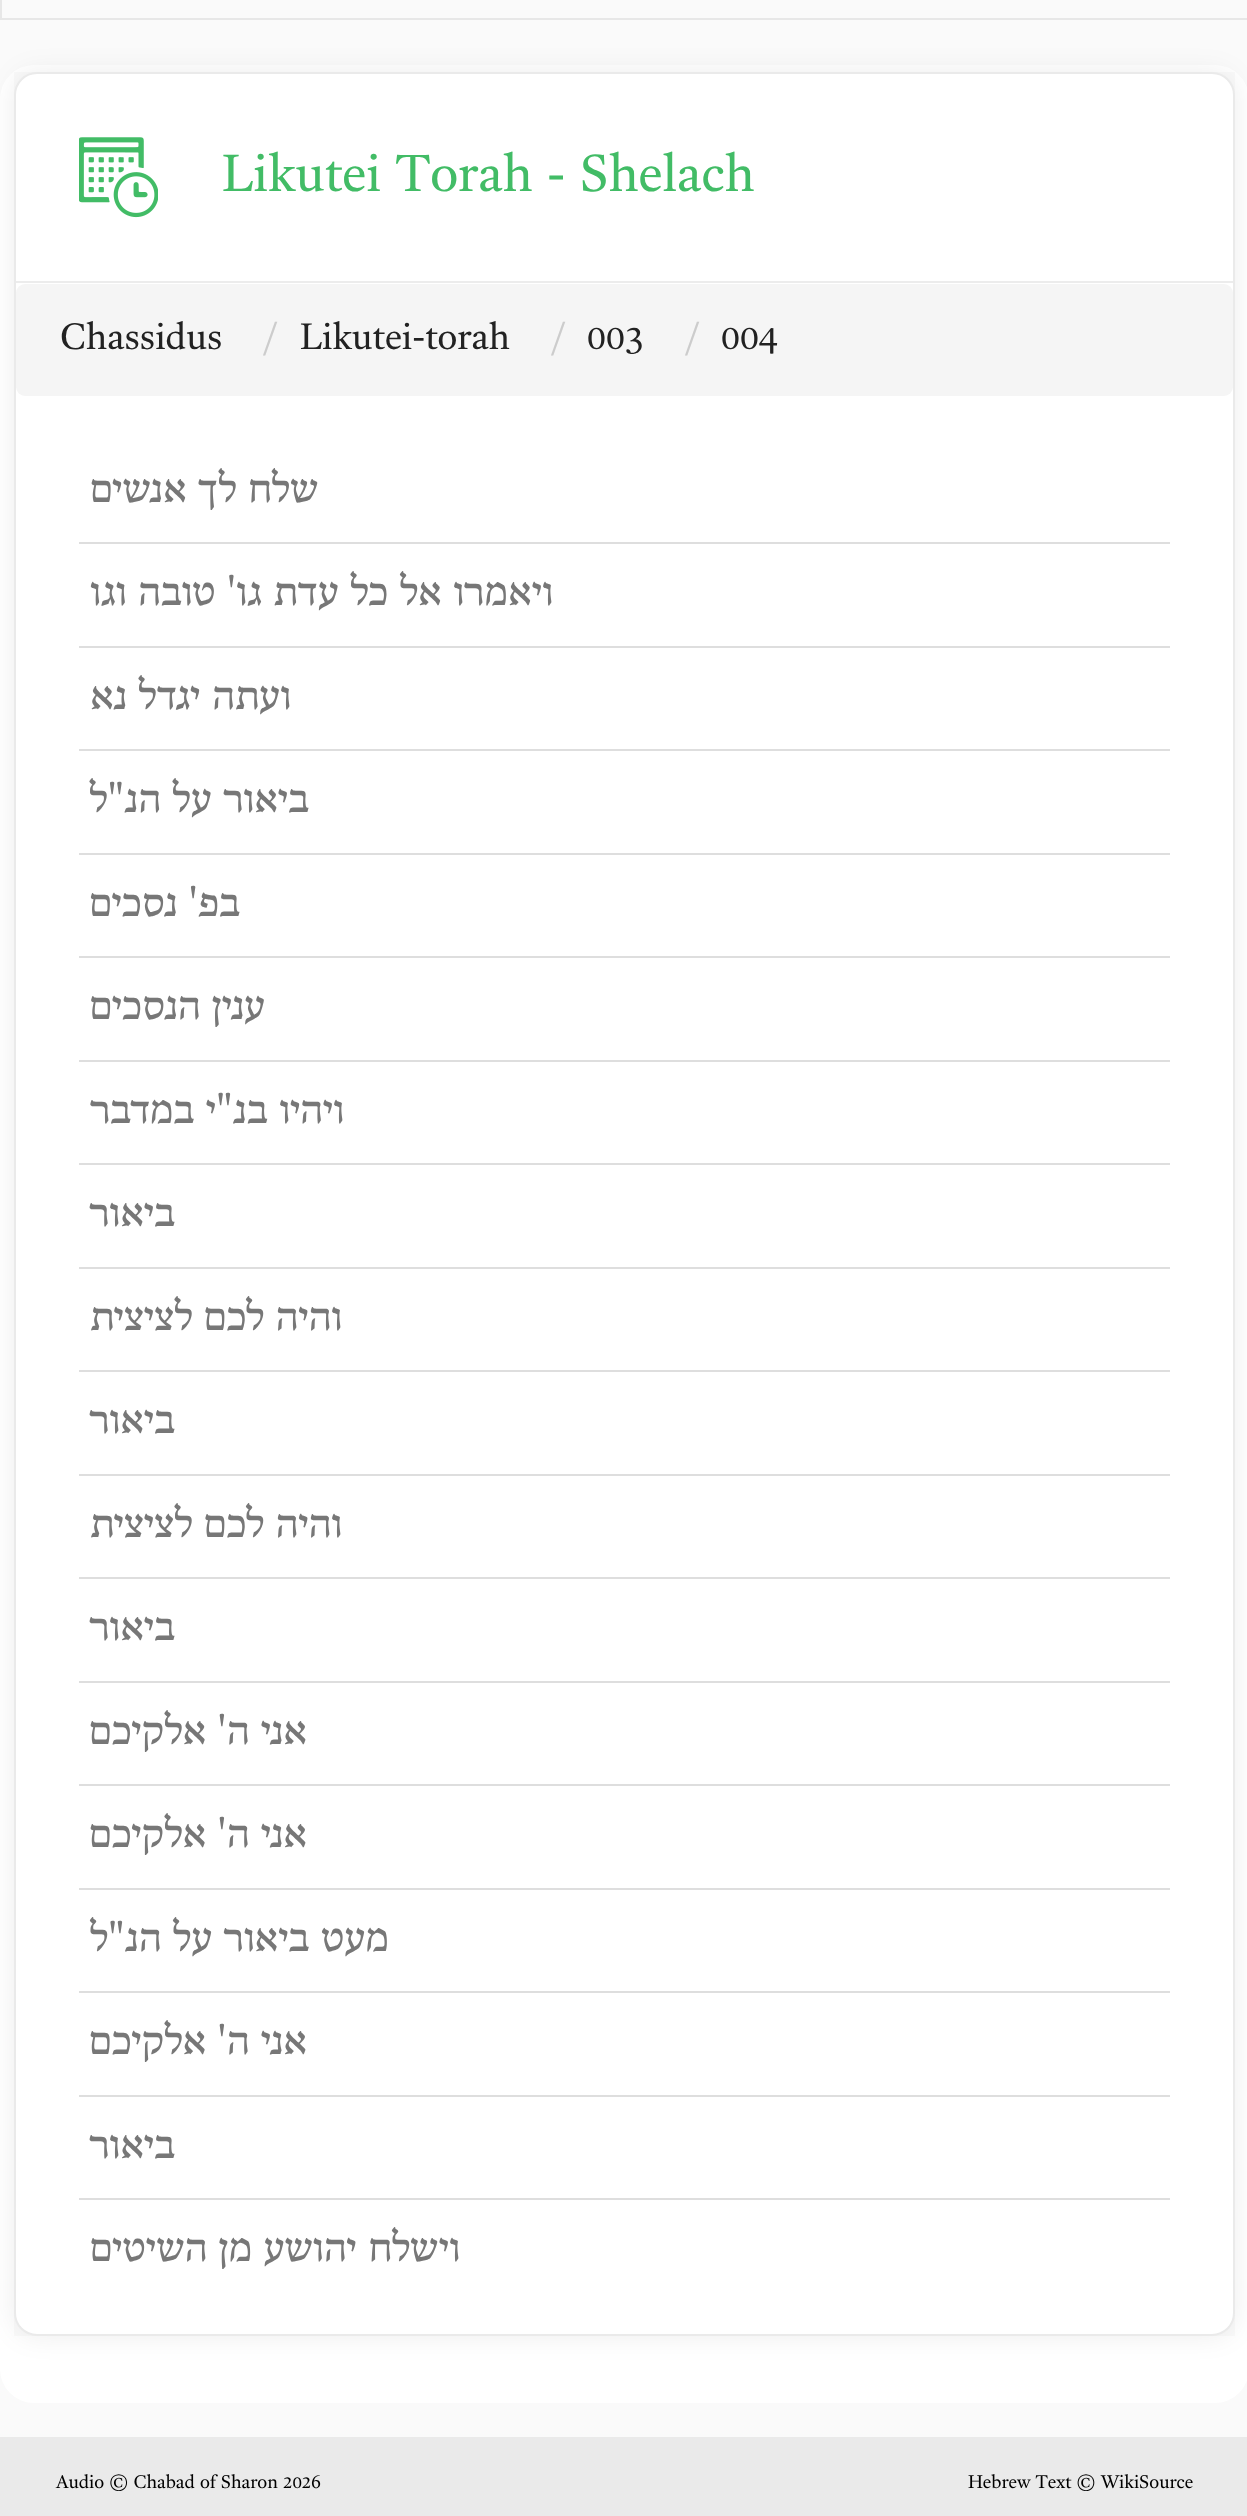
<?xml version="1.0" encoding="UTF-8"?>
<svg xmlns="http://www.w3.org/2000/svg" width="1247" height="2516">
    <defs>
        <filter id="blur1" x="-50%" y="-200%" width="200%" height="500%"><feGaussianBlur stdDeviation="13.5"/></filter>
    </defs>
    <rect width="100%" height="100%" fill="#FAFAFA"/>
    <rect x="1" y="-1" width="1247" height="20" fill="none" stroke="#E7E7E7" stroke-width="2"/>
    <rect x="0" y="65" width="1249" height="2338" rx="34" fill="#FFFFFF"/>
    <rect x="14" y="72" width="1221" height="2264" fill="#FAFAFA"/>
    <rect x="14" y="72" width="1221" height="2264" rx="23" fill="#000000" fill-opacity="0.07" filter="url(#blur1)"/>
    <rect x="15" y="73" width="1219" height="2262" rx="22" fill="#FFFFFF" stroke="#EAEAEA" stroke-width="2"/>
    <rect x="16" y="281" width="1217" height="2" fill="#ECECEC"/>
    <text x="222" y="191" font-family="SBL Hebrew" font-size="53.5" fill="#42BC66">Likutei Torah - Shelach</text>
    <image x="79" y="137" width="79" height="81" href="img_01.png"/>
    <rect x="16" y="284" width="1217" height="112" rx="9" fill="#F5F5F5"/>
    <text x="721" y="349" font-family="SBL Hebrew" font-size="37.75" fill="#222222">004</text>
    <text x="686" y="349" font-family="SBL Hebrew" font-size="37.75" fill="#CCCCCC">/</text>
    <text x="587" y="349" font-family="SBL Hebrew" font-size="37.75" fill="#222222">003</text>
    <text x="552" y="349" font-family="SBL Hebrew" font-size="37.75" fill="#CCCCCC">/</text>
    <text x="300" y="349" font-family="SBL Hebrew" font-size="37.75" fill="#222222">Likutei-torah</text>
    <text x="264" y="349" font-family="SBL Hebrew" font-size="37.75" fill="#CCCCCC">/</text>
    <text x="60" y="349" font-family="SBL Hebrew" font-size="37.75" fill="#222222">Chassidus</text>
    <rect x="79" y="542" width="1091" height="2" fill="#DEDEDE"/>
    <text x="318" y="502" font-family="SBL Hebrew" font-size="41.5" direction="rtl" fill="#777777">שלח לך אנשים</text>
    <rect x="79" y="646" width="1091" height="2" fill="#DEDEDE"/>
    <text x="553" y="605" font-family="SBL Hebrew" font-size="41.5" direction="rtl" fill="#777777">ויאמרו אל כל עדת גו' טובה וגו</text>
    <rect x="79" y="749" width="1091" height="2" fill="#DEDEDE"/>
    <text x="291" y="709" font-family="SBL Hebrew" font-size="41.5" direction="rtl" fill="#777777">ועתה יגדל נא</text>
    <rect x="79" y="853" width="1091" height="2" fill="#DEDEDE"/>
    <text x="309" y="812" font-family="SBL Hebrew" font-size="41.5" direction="rtl" fill="#777777">ביאור על הנ"ל</text>
    <rect x="79" y="956" width="1091" height="2" fill="#DEDEDE"/>
    <text x="240" y="916" font-family="SBL Hebrew" font-size="41.5" direction="rtl" fill="#777777">בפ' נסכים</text>
    <rect x="79" y="1060" width="1091" height="2" fill="#DEDEDE"/>
    <text x="265" y="1019" font-family="SBL Hebrew" font-size="41.5" direction="rtl" fill="#777777">ענין הנסכים</text>
    <rect x="79" y="1163" width="1091" height="2" fill="#DEDEDE"/>
    <text x="344" y="1123" font-family="SBL Hebrew" font-size="41.5" direction="rtl" fill="#777777">ויהיו בנ"י במדבר</text>
    <rect x="79" y="1267" width="1091" height="2" fill="#DEDEDE"/>
    <text x="175" y="1226" font-family="SBL Hebrew" font-size="41.5" direction="rtl" fill="#777777">ביאור</text>
    <rect x="79" y="1370" width="1091" height="2" fill="#DEDEDE"/>
    <text x="342" y="1330" font-family="SBL Hebrew" font-size="41.5" direction="rtl" fill="#777777">והיה לכם לציצית</text>
    <rect x="79" y="1474" width="1091" height="2" fill="#DEDEDE"/>
    <text x="175" y="1433" font-family="SBL Hebrew" font-size="41.5" direction="rtl" fill="#777777">ביאור</text>
    <rect x="79" y="1577" width="1091" height="2" fill="#DEDEDE"/>
    <text x="342" y="1537" font-family="SBL Hebrew" font-size="41.5" direction="rtl" fill="#777777">והיה לכם לציצית</text>
    <rect x="79" y="1681" width="1091" height="2" fill="#DEDEDE"/>
    <text x="175" y="1640" font-family="SBL Hebrew" font-size="41.5" direction="rtl" fill="#777777">ביאור</text>
    <rect x="79" y="1784" width="1091" height="2" fill="#DEDEDE"/>
    <text x="307" y="1744" font-family="SBL Hebrew" font-size="41.5" direction="rtl" fill="#777777">אני ה' אלקיכם</text>
    <rect x="79" y="1888" width="1091" height="2" fill="#DEDEDE"/>
    <text x="307" y="1847" font-family="SBL Hebrew" font-size="41.5" direction="rtl" fill="#777777">אני ה' אלקיכם</text>
    <rect x="79" y="1991" width="1091" height="2" fill="#DEDEDE"/>
    <text x="389" y="1951" font-family="SBL Hebrew" font-size="41.5" direction="rtl" fill="#777777">מעט ביאור על הנ"ל</text>
    <rect x="79" y="2095" width="1091" height="2" fill="#DEDEDE"/>
    <text x="307" y="2054" font-family="SBL Hebrew" font-size="41.5" direction="rtl" fill="#777777">אני ה' אלקיכם</text>
    <rect x="79" y="2198" width="1091" height="2" fill="#DEDEDE"/>
    <text x="175" y="2158" font-family="SBL Hebrew" font-size="41.5" direction="rtl" fill="#777777">ביאור</text>
    <text x="460" y="2261" font-family="SBL Hebrew" font-size="41.5" direction="rtl" fill="#777777">וישלח יהושע מן השיטים</text>
    <rect x="0" y="2437" width="1247" height="79" fill="#EAEAEA"/>
    <text x="968" y="2488" font-family="SBL Hebrew" font-size="18.9" fill="#000000">Hebrew Text © WikiSource</text>
    <text x="56" y="2488" font-family="SBL Hebrew" font-size="18.9" fill="#000000">Audio © Chabad of Sharon 2026</text>
</svg>
